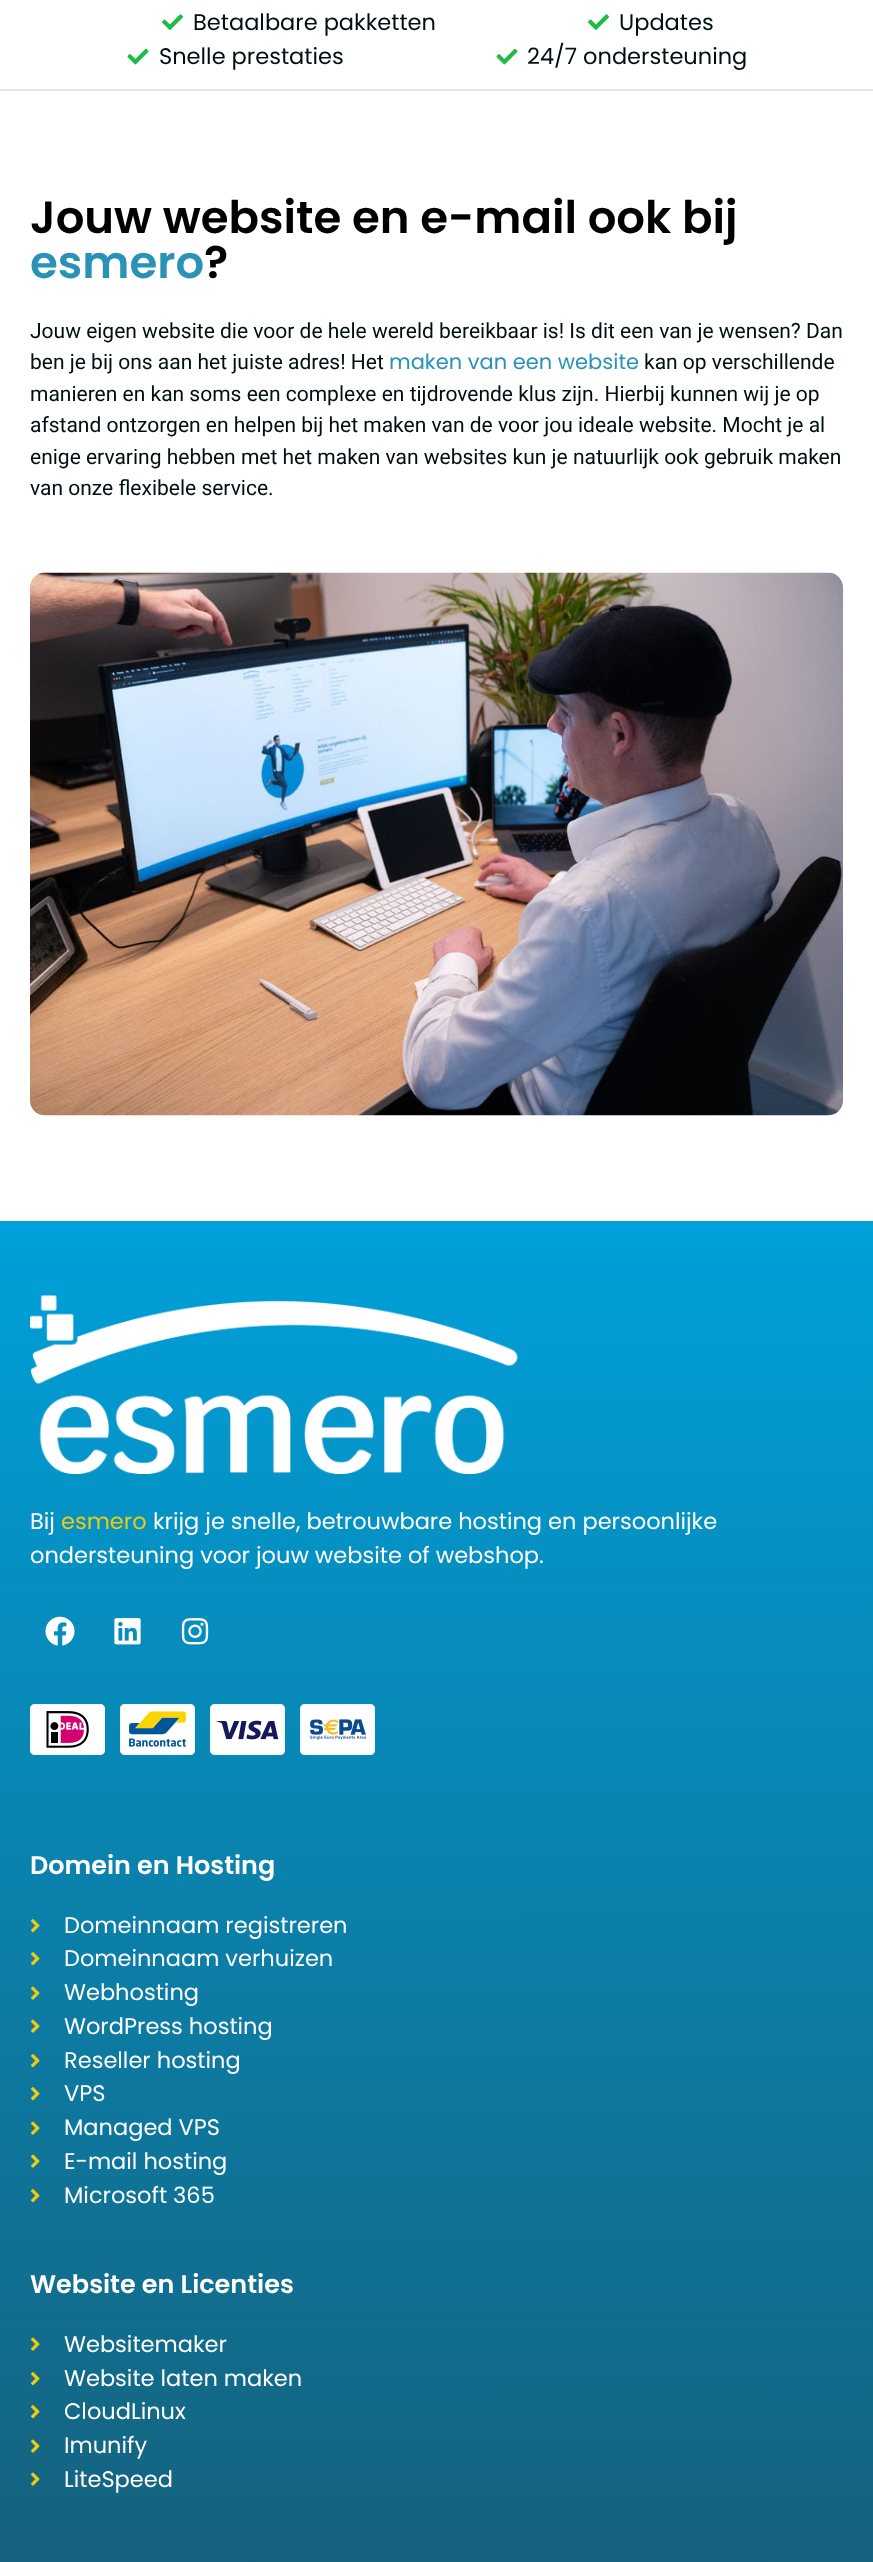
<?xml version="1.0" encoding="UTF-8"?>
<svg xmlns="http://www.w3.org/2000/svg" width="873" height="2562">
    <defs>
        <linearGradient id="g1" gradientUnits="userSpaceOnUse" x1="436" y1="1221" x2="437" y2="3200"><stop offset="0" stop-color="#00A0DA"/><stop offset="1" stop-color="#1F4451"/></linearGradient>
    </defs>
    <rect width="100%" height="100%" fill="#FFFFFF"/>
    <rect x="0" y="89" width="873" height="2" fill="#E6E6E6"/>
    <image x="162" y="14" width="21" height="16" href="img_01.png"/>
    <text x="193" y="30" font-family="Poppins" font-size="22.5" fill="#010E13">Betaalbare pakketten</text>
    <image x="588" y="14" width="21" height="16" href="img_01.png"/>
    <text x="619" y="30" font-family="Poppins" font-size="22.5" fill="#010E13">Updates</text>
    <image x="127" y="48" width="22" height="17" href="img_02.png"/>
    <text x="159" y="64" font-family="Poppins" font-size="22.5" fill="#010E13">Snelle prestaties</text>
    <image x="496" y="48" width="22" height="17" href="img_02.png"/>
    <text x="527" y="64" font-family="Poppins" font-size="22.5" fill="#010E13">24/7 ondersteuning</text>
    <text x="30" y="233" font-family="Poppins" font-size="45" font-weight="600" fill="#000000">Jouw website en e-mail ook bij</text>
    <text x="30" y="278" font-family="Poppins" font-size="45" font-weight="600" fill="#2A92B7">esmero</text>
    <text x="204" y="278" font-family="Poppins" font-size="45" font-weight="600" fill="#000000">?</text>
    <text font-family="Roboto" font-size="21" fill="#010E13">
        <tspan x="30" y="338">Jouw eigen website die voor de hele wereld bereikbaar is! Is dit een van je wensen? Dan</tspan>
        <tspan x="30" y="369">ben je bij ons aan het juiste adres! Het</tspan>
    </text>
    <text x="389" y="369" font-family="Poppins" font-size="21" fill="#2A92B7">maken van een website</text>
    <text x="644" y="369" font-family="Roboto" font-size="21" fill="#010E13">kan op verschillende</text>
    <text font-family="Roboto" font-size="21" fill="#010E13">
        <tspan x="30" y="401">manieren en kan soms een complexe en tijdrovende klus zijn. Hierbij kunnen wij je op</tspan>
        <tspan x="30" y="432">afstand ontzorgen en helpen bij het maken van de voor jou ideale website. Mocht je al</tspan>
        <tspan x="30" y="464">enige ervaring hebben met het maken van websites kun je natuurlijk ook gebruik maken</tspan>
        <tspan x="30" y="495">van onze flexibele service.</tspan>
    </text>
    <image x="30" y="572" width="813" height="544" href="img_03.png"/>
    <rect x="0" y="1221" width="873" height="1341" fill="url(#g1)"/>
    <image x="30" y="1295" width="488" height="179" href="img_04.png"/>
    <text x="30" y="1529" font-family="Poppins" font-size="22.5" fill="#FFFFFF">Bij</text>
    <text x="61" y="1529" font-family="Poppins" font-size="22.5" fill="#EECA10">esmero</text>
    <text x="153" y="1529" font-family="Poppins" font-size="22.5" fill="#FFFFFF">krijg je snelle, betrouwbare hosting en persoonlijke</text>
    <text x="30" y="1563" font-family="Poppins" font-size="22.5" fill="#FFFFFF">ondersteuning voor jouw website of webshop.</text>
    <image x="45" y="1616" width="30" height="30" href="img_05.png"/>
    <image x="114" y="1618" width="27" height="27" href="img_06.png"/>
    <image x="181" y="1618" width="28" height="27" href="img_07.png"/>
    <image x="30" y="1704" width="75" height="51" href="img_08.png"/>
    <image x="120" y="1704" width="75" height="51" href="img_09.png"/>
    <image x="210" y="1704" width="75" height="51" href="img_10.png"/>
    <image x="300" y="1704" width="75" height="51" href="img_11.png"/>
    <text x="30" y="1874" font-family="Poppins" font-size="25.5" font-weight="600" fill="#FFFFFF">Domein en Hosting</text>
    <image x="31" y="1919" width="9" height="14" href="img_12.png"/>
    <text x="64" y="1933" font-family="Poppins" font-size="22.5" fill="#FFFFFF">Domeinnaam registreren</text>
    <image x="31" y="1952" width="9" height="14" href="img_13.png"/>
    <text x="64" y="1966" font-family="Poppins" font-size="22.5" fill="#FFFFFF">Domeinnaam verhuizen</text>
    <image x="31" y="1986" width="9" height="14" href="img_14.png"/>
    <text x="64" y="2000" font-family="Poppins" font-size="22.5" fill="#FFFFFF">Webhosting</text>
    <image x="31" y="2019" width="9" height="14" href="img_15.png"/>
    <text x="64" y="2034" font-family="Poppins" font-size="22.5" fill="#FFFFFF">WordPress hosting</text>
    <image x="31" y="2054" width="9" height="14" href="img_16.png"/>
    <text x="64" y="2068" font-family="Poppins" font-size="22.5" fill="#FFFFFF">Reseller hosting</text>
    <image x="31" y="2087" width="9" height="14" href="img_17.png"/>
    <text x="64" y="2101" font-family="Poppins" font-size="22.5" fill="#FFFFFF">VPS</text>
    <image x="31" y="2121" width="9" height="14" href="img_18.png"/>
    <text x="64" y="2135" font-family="Poppins" font-size="22.5" fill="#FFFFFF">Managed VPS</text>
    <image x="31" y="2154" width="9" height="14" href="img_19.png"/>
    <text x="64" y="2169" font-family="Poppins" font-size="22.5" fill="#FFFFFF">E-mail hosting</text>
    <image x="31" y="2189" width="9" height="14" href="img_20.png"/>
    <text x="64" y="2203" font-family="Poppins" font-size="22.5" fill="#FFFFFF">Microsoft 365</text>
    <text x="30" y="2293" font-family="Poppins" font-size="25.5" font-weight="600" fill="#FFFFFF">Website en Licenties</text>
    <image x="31" y="2337" width="9" height="14" href="img_21.png"/>
    <text x="64" y="2352" font-family="Poppins" font-size="22.5" fill="#FFFFFF">Websitemaker</text>
    <image x="31" y="2372" width="9" height="14" href="img_22.png"/>
    <text x="64" y="2386" font-family="Poppins" font-size="22.5" fill="#FFFFFF">Website laten maken</text>
    <image x="31" y="2405" width="9" height="14" href="img_23.png"/>
    <text x="64" y="2419" font-family="Poppins" font-size="22.5" fill="#FFFFFF">CloudLinux</text>
    <image x="31" y="2439" width="9" height="14" href="img_24.png"/>
    <text x="64" y="2453" font-family="Poppins" font-size="22.5" fill="#FFFFFF">Imunify</text>
    <image x="31" y="2472" width="9" height="14" href="img_25.png"/>
    <text x="64" y="2487" font-family="Poppins" font-size="22.5" fill="#FFFFFF">LiteSpeed</text>
</svg>
